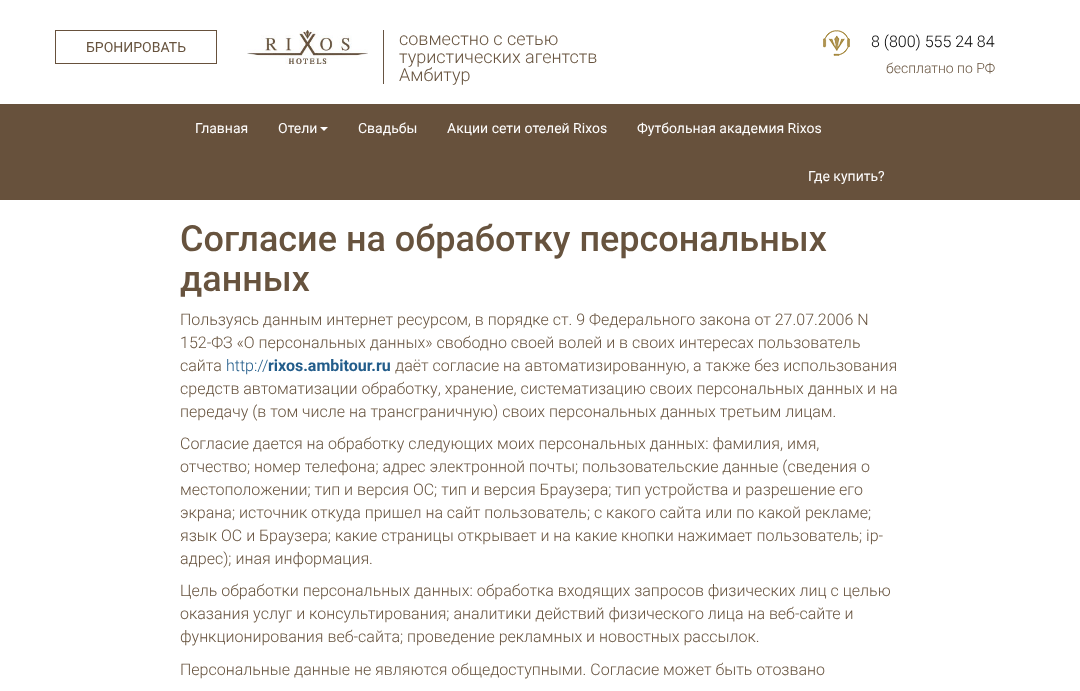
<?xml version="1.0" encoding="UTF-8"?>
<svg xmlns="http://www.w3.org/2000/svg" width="1080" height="691">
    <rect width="100%" height="100%" fill="#FFFFFF"/>
    <rect x="55.5" y="30.5" width="161" height="33" fill="none" stroke="#67513C"/>
    <text x="86" y="52" font-family="Roboto" font-size="14" fill="#67533E">БРОНИРОВАТЬ</text>
    <image x="247" y="30" width="121" height="34" href="img_01.png"/>
    <rect x="383" y="30" width="1" height="54" fill="#675442"/>
    <text font-family="Roboto" font-size="18" font-weight="300" fill="#67533E">
        <tspan x="399" y="45">совместно с сетью</tspan>
        <tspan x="399" y="63">туристических агентств</tspan>
        <tspan x="399" y="81">Амбитур</tspan>
    </text>
    <image x="823" y="30" width="27" height="26" href="img_02.png"/>
    <text x="871" y="47" font-family="Roboto" font-size="16" font-weight="300" fill="#000000">8 (800) 555 24 84</text>
    <text x="886" y="73" font-family="Roboto" font-size="14" font-weight="300" fill="#67533E">бесплатно по РФ</text>
    <rect x="0" y="104" width="1080" height="96" fill="#67513C"/>
    <text x="195" y="133" font-family="Roboto" font-size="14" fill="#FFFEFE">Главная</text>
    <text x="278" y="133" font-family="Roboto" font-size="14" fill="#FFFEFE">Отели</text>
    <path d="M 320 127 H 328 L 324 131 Z" fill="#FFFEFE"/>
    <text x="358" y="133" font-family="Roboto" font-size="14" fill="#FFFEFE">Свадьбы</text>
    <text x="447" y="133" font-family="Roboto" font-size="14" fill="#FFFEFE">Акции сети отелей Rixos</text>
    <text x="637" y="133" font-family="Roboto" font-size="14" fill="#FFFEFE">Футбольная академия Rixos</text>
    <text x="808" y="181" font-family="Roboto" font-size="14" fill="#FFFEFE">Где купить?</text>
    <text font-family="Roboto" font-size="36" font-weight="500" fill="#67533E">
        <tspan x="180" y="251">Согласие на обработку персональных</tspan>
        <tspan x="180" y="291">данных</tspan>
    </text>
    <text font-family="Roboto" font-size="16" font-weight="300" fill="#67533E">
        <tspan x="180" y="325">Пользуясь данным интернет ресурсом, в порядке ст. 9 Федерального закона от 27.07.2006 N</tspan>
        <tspan x="180" y="348">152-ФЗ «О персональных данных» свободно своей волей и в своих интересах пользователь</tspan>
        <tspan x="180" y="371">сайта</tspan>
    </text>
    <text x="226" y="371" font-family="Roboto" font-size="16" font-weight="300" fill="#225C8A">http://</text>
    <text x="268" y="371" font-family="Roboto" font-size="16" font-weight="700" fill="#225C8A">rixos.ambitour.ru</text>
    <text x="395" y="371" font-family="Roboto" font-size="16" font-weight="300" fill="#67533E">даёт согласие на автоматизированную, а также без использования</text>
    <text font-family="Roboto" font-size="16" font-weight="300" fill="#67533E">
        <tspan x="180" y="394">средств автоматизации обработку, хранение, систематизацию своих персональных данных и на</tspan>
        <tspan x="180" y="417">передачу (в том числе на трансграничную) своих персональных данных третьим лицам.</tspan>
    </text>
    <text font-family="Roboto" font-size="16" font-weight="300" fill="#67533E">
        <tspan x="180" y="449">Согласие дается на обработку следующих моих персональных данных: фамилия, имя,</tspan>
        <tspan x="180" y="472">отчество; номер телефона; адрес электронной почты; пользовательские данные (сведения о</tspan>
        <tspan x="180" y="495">местоположении; тип и версия ОС; тип и версия Браузера; тип устройства и разрешение его</tspan>
        <tspan x="180" y="518">экрана; источник откуда пришел на сайт пользователь; с какого сайта или по какой рекламе;</tspan>
        <tspan x="180" y="541">язык ОС и Браузера; какие страницы открывает и на какие кнопки нажимает пользователь; ip-</tspan>
        <tspan x="180" y="564">адрес); иная информация.</tspan>
    </text>
    <text font-family="Roboto" font-size="16" font-weight="300" fill="#67533E">
        <tspan x="180" y="596">Цель обработки персональных данных: обработка входящих запросов физических лиц с целью</tspan>
        <tspan x="180" y="619">оказания услуг и консультирования; аналитики действий физического лица на веб-сайте и</tspan>
        <tspan x="180" y="642">функционирования веб-сайта; проведение рекламных и новостных рассылок.</tspan>
    </text>
    <text x="180" y="675" font-family="Roboto" font-size="16" font-weight="300" fill="#67533E">Персональные данные не являются общедоступными. Согласие может быть отозвано</text>
</svg>
